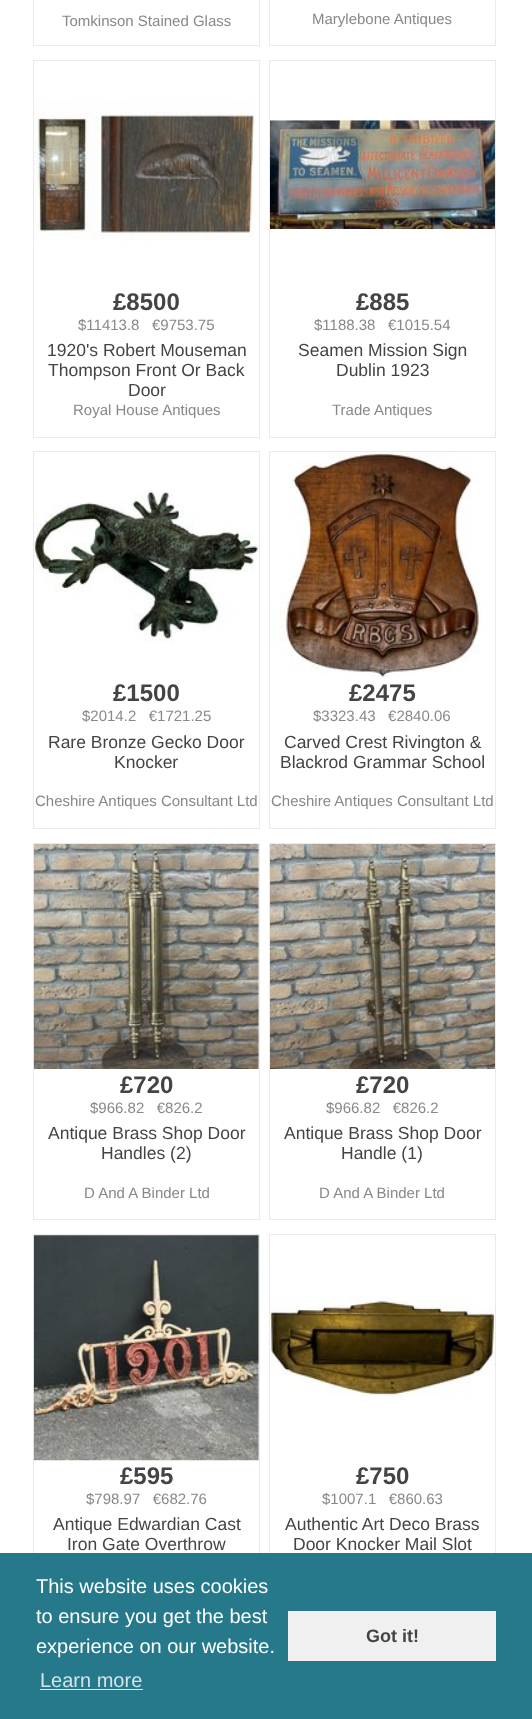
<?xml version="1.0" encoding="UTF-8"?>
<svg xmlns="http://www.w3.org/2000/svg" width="532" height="1719">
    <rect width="100%" height="100%" fill="#FFFFFF"/>
    <rect x="33.5" y="-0.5" width="226" height="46" fill="none" stroke="#EAEAEA"/>
    <text x="62" y="26" font-family="Liberation Sans" font-size="15" fill="#888888">Tomkinson Stained Glass</text>
    <rect x="269.5" y="-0.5" width="226" height="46" fill="none" stroke="#EAEAEA"/>
    <text x="312" y="24" font-family="Liberation Sans" font-size="15" fill="#888888">Marylebone Antiques</text>
    <rect x="33.5" y="60.5" width="226" height="377" fill="none" stroke="#EAEAEA"/>
    <image x="34" y="102" width="221" height="139" href="img_01.png"/>
    <text x="113" y="310" font-family="Liberation Sans" font-size="24" font-weight="700" fill="#444444">£8500</text>
    <text x="78" y="330" font-family="Liberation Sans" font-size="15" fill="#888888" xml:space="preserve">$11413.8   €9753.75</text>
    <text x="47" y="356" font-family="Liberation Sans" font-size="17.5" fill="#444444">1920's Robert Mouseman</text>
    <text x="48" y="376" font-family="Liberation Sans" font-size="17.5" fill="#444444">Thompson Front Or Back</text>
    <text x="128" y="396" font-family="Liberation Sans" font-size="17.5" fill="#444444">Door</text>
    <text x="73" y="415" font-family="Liberation Sans" font-size="15" fill="#888888">Royal House Antiques</text>
    <rect x="269.5" y="60.5" width="226" height="377" fill="none" stroke="#EAEAEA"/>
    <image x="270" y="120" width="225" height="109" href="img_02.png"/>
    <text x="356" y="310" font-family="Liberation Sans" font-size="24" font-weight="700" fill="#444444">£885</text>
    <text x="314" y="330" font-family="Liberation Sans" font-size="15" fill="#888888" xml:space="preserve">$1188.38   €1015.54</text>
    <text x="298" y="356" font-family="Liberation Sans" font-size="17.5" fill="#444444">Seamen Mission Sign</text>
    <text x="336" y="376" font-family="Liberation Sans" font-size="17.5" fill="#444444">Dublin 1923</text>
    <text x="332" y="415" font-family="Liberation Sans" font-size="15" fill="#888888">Trade Antiques</text>
    <rect x="33.5" y="451.5" width="226" height="377" fill="none" stroke="#EAEAEA"/>
    <image x="34" y="490" width="224" height="153" href="img_03.png"/>
    <text x="113" y="701" font-family="Liberation Sans" font-size="24" font-weight="700" fill="#444444">£1500</text>
    <text x="82" y="721" font-family="Liberation Sans" font-size="15" fill="#888888" xml:space="preserve">$2014.2   €1721.25</text>
    <text x="48" y="748" font-family="Liberation Sans" font-size="17.5" fill="#444444">Rare Bronze Gecko Door</text>
    <text x="114" y="768" font-family="Liberation Sans" font-size="17.5" fill="#444444">Knocker</text>
    <text x="35" y="806" font-family="Liberation Sans" font-size="15" fill="#888888">Cheshire Antiques Consultant Ltd</text>
    <rect x="269.5" y="451.5" width="226" height="377" fill="none" stroke="#EAEAEA"/>
    <image x="270" y="453" width="212" height="225" href="img_04.png"/>
    <text x="349" y="701" font-family="Liberation Sans" font-size="24" font-weight="700" fill="#444444">£2475</text>
    <text x="313" y="721" font-family="Liberation Sans" font-size="15" fill="#888888" xml:space="preserve">$3323.43   €2840.06</text>
    <text x="284" y="748" font-family="Liberation Sans" font-size="17.5" fill="#444444">Carved Crest Rivington &amp;</text>
    <text x="280" y="768" font-family="Liberation Sans" font-size="17.5" fill="#444444">Blackrod Grammar School</text>
    <text x="271" y="806" font-family="Liberation Sans" font-size="15" fill="#888888">Cheshire Antiques Consultant Ltd</text>
    <rect x="33.5" y="843.5" width="226" height="376" fill="none" stroke="#EAEAEA"/>
    <image x="33" y="844" width="226" height="225" href="img_05.png"/>
    <text x="120" y="1093" font-family="Liberation Sans" font-size="24" font-weight="700" fill="#444444">£720</text>
    <text x="90" y="1113" font-family="Liberation Sans" font-size="15" fill="#888888" xml:space="preserve">$966.82   €826.2</text>
    <text x="48" y="1139" font-family="Liberation Sans" font-size="17.5" fill="#444444">Antique Brass Shop Door</text>
    <text x="101" y="1159" font-family="Liberation Sans" font-size="17.5" fill="#444444">Handles (2)</text>
    <text x="84" y="1198" font-family="Liberation Sans" font-size="15" fill="#888888">D And A Binder Ltd</text>
    <rect x="269.5" y="843.5" width="226" height="376" fill="none" stroke="#EAEAEA"/>
    <image x="270" y="844" width="225" height="225" href="img_06.png"/>
    <text x="356" y="1093" font-family="Liberation Sans" font-size="24" font-weight="700" fill="#444444">£720</text>
    <text x="326" y="1113" font-family="Liberation Sans" font-size="15" fill="#888888" xml:space="preserve">$966.82   €826.2</text>
    <text x="284" y="1139" font-family="Liberation Sans" font-size="17.5" fill="#444444">Antique Brass Shop Door</text>
    <text x="341" y="1159" font-family="Liberation Sans" font-size="17.5" fill="#444444">Handle (1)</text>
    <text x="319" y="1198" font-family="Liberation Sans" font-size="15" fill="#888888">D And A Binder Ltd</text>
    <rect x="33.5" y="1234.5" width="226" height="376" fill="none" stroke="#EAEAEA"/>
    <image x="33" y="1235" width="226" height="226" href="img_07.png"/>
    <text x="120" y="1484" font-family="Liberation Sans" font-size="24" font-weight="700" fill="#444444">£595</text>
    <text x="86" y="1504" font-family="Liberation Sans" font-size="15" fill="#888888" xml:space="preserve">$798.97   €682.76</text>
    <text x="53" y="1530" font-family="Liberation Sans" font-size="17.5" fill="#444444">Antique Edwardian Cast</text>
    <text x="67" y="1550" font-family="Liberation Sans" font-size="17.5" fill="#444444">Iron Gate Overthrow</text>
    <rect x="269.5" y="1234.5" width="226" height="376" fill="none" stroke="#EAEAEA"/>
    <image x="270" y="1295" width="225" height="101" href="img_08.png"/>
    <text x="356" y="1484" font-family="Liberation Sans" font-size="24" font-weight="700" fill="#444444">£750</text>
    <text x="322" y="1504" font-family="Liberation Sans" font-size="15" fill="#888888" xml:space="preserve">$1007.1   €860.63</text>
    <text x="285" y="1530" font-family="Liberation Sans" font-size="17.5" fill="#444444">Authentic Art Deco Brass</text>
    <text x="293" y="1550" font-family="Liberation Sans" font-size="17.5" fill="#444444">Door Knocker Mail Slot</text>
    <rect x="0" y="1553" width="532" height="166" fill="#26798B"/>
    <text font-family="Liberation Sans" font-size="20" fill="#FFFFFF">
        <tspan x="36" y="1593">This website uses cookies</tspan>
        <tspan x="36" y="1623">to ensure you get the best</tspan>
        <tspan x="36" y="1653">experience on our website.</tspan>
    </text>
    <text x="40" y="1687" font-family="Liberation Sans" font-size="20" fill="#D4E4E8">Learn more</text>
    <rect x="40" y="1689" width="103" height="1" fill="#D4E4E8"/>
    <rect x="288" y="1611" width="208" height="50" fill="#F0F0F0"/>
    <text x="366" y="1642" font-family="Liberation Sans" font-size="18" font-weight="700" fill="#444444">Got it!</text>
</svg>
